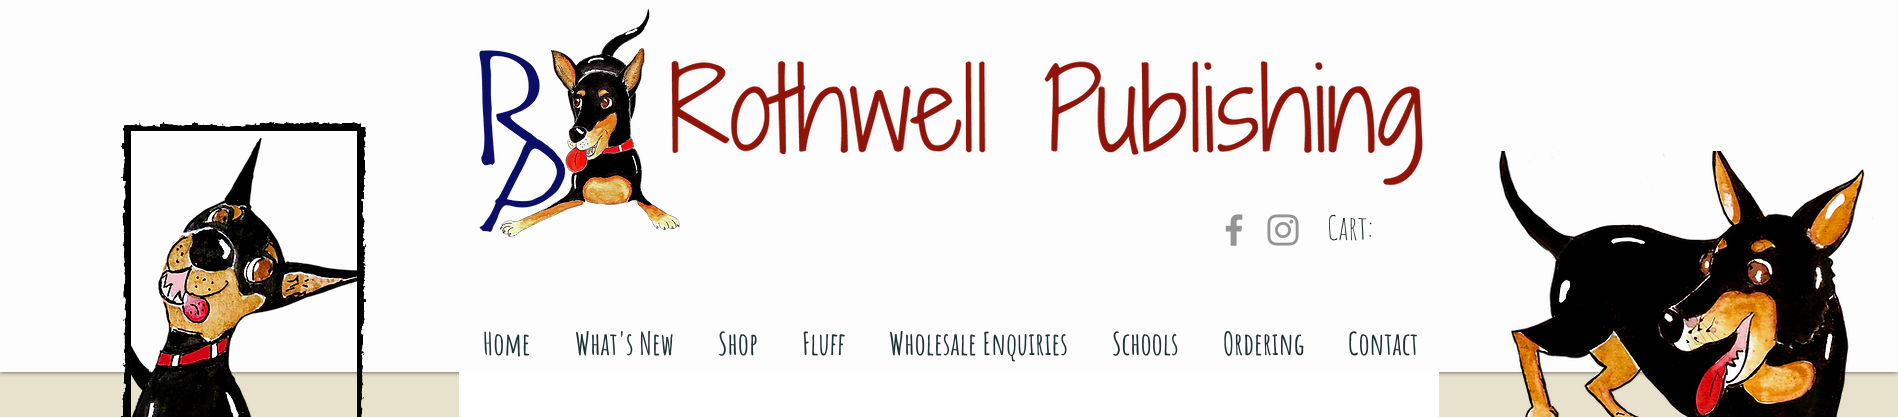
<?xml version="1.0" encoding="UTF-8"?>
<svg xmlns="http://www.w3.org/2000/svg" width="1898" height="417">
    <defs>
        <filter id="blur1" x="-50%" y="-200%" width="200%" height="500%"><feGaussianBlur stdDeviation="2.5"/></filter>
    </defs>
    <rect width="100%" height="100%" fill="#E8E1CC"/>
    <rect x="0" y="0" width="1898" height="372" fill="#000000" fill-opacity="0.7" filter="url(#blur1)"/>
    <rect x="0" y="0" width="1898" height="372" fill="#FEFDFD"/>
    <image x="357" y="127" width="9" height="290" href="img_03.png"/>
    <image x="121" y="122" width="240" height="295" href="img_01.png"/>
    <image x="130" y="135" width="227" height="282" href="img_02.png"/>
    <image x="671" y="59" width="752" height="128" href="img_05.png"/>
    <image x="479" y="8" width="201" height="229" href="img_04.png"/>
    <image x="1225" y="214" width="18" height="32" href="img_06.png"/>
    <image x="1267" y="214" width="32" height="32" href="img_07.png"/>
    <text x="1327" y="240" font-family="Amatic SC" font-size="33" fill="#1E3331">Cart:</text>
    <text x="483" y="355" font-family="Amatic SC" font-size="31" font-weight="700" fill="#1E3331">Home</text>
    <text x="575" y="355" font-family="Amatic SC" font-size="31" font-weight="700" fill="#1E3331">What's New</text>
    <text x="718" y="355" font-family="Amatic SC" font-size="31" font-weight="700" fill="#1E3331">Shop</text>
    <text x="802" y="355" font-family="Amatic SC" font-size="31" font-weight="700" fill="#1E3331">Fluff</text>
    <text x="889" y="355" font-family="Amatic SC" font-size="31" font-weight="700" fill="#1E3331">Wholesale Enquiries</text>
    <text x="1112" y="355" font-family="Amatic SC" font-size="31" font-weight="700" fill="#1E3331">Schools</text>
    <text x="1223" y="355" font-family="Amatic SC" font-size="31" font-weight="700" fill="#1E3331">Ordering</text>
    <text x="1348" y="355" font-family="Amatic SC" font-size="31" font-weight="700" fill="#1E3331">Contact</text>
    <image x="1492" y="151" width="381" height="266" href="img_08.png"/>
    <rect x="459" y="372" width="980" height="45" fill="#FFFFFF"/>
</svg>
